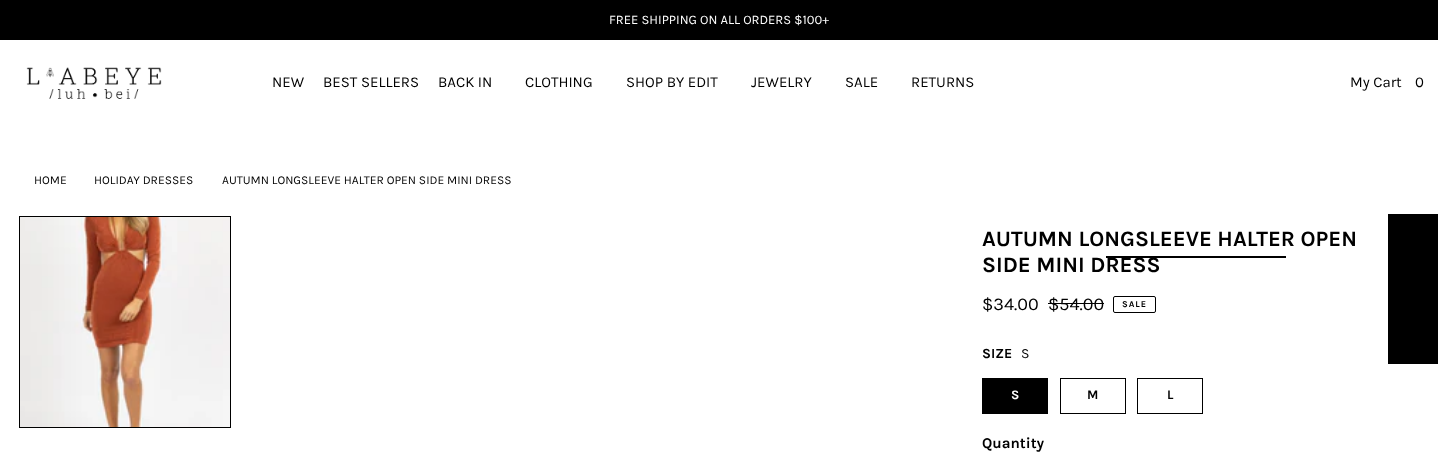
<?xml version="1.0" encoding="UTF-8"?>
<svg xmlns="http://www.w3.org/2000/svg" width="1438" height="452">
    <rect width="100%" height="100%" fill="#FFFFFF"/>
    <rect x="0" y="0" width="1438" height="40" fill="#000000"/>
    <text x="609" y="24" font-family="Karla" font-size="13" fill="#FFFFFF">FREE SHIPPING ON ALL ORDERS $100+</text>
    <image x="26" y="67" width="136" height="32" href="img_01.png"/>
    <text x="272" y="87" font-family="Karla" font-size="15" fill="#000000">NEW</text>
    <text x="323" y="87" font-family="Karla" font-size="15" fill="#000000">BEST SELLERS</text>
    <text x="438" y="87" font-family="Karla" font-size="15" fill="#000000">BACK IN</text>
    <text x="525" y="87" font-family="Karla" font-size="15" fill="#000000">CLOTHING</text>
    <text x="626" y="87" font-family="Karla" font-size="15" fill="#000000">SHOP BY EDIT</text>
    <text x="751" y="87" font-family="Karla" font-size="15" fill="#000000">JEWELRY</text>
    <text x="845" y="87" font-family="Karla" font-size="15" fill="#000000">SALE</text>
    <text x="911" y="87" font-family="Karla" font-size="15" fill="#000000">RETURNS</text>
    <text x="1350" y="87" font-family="Karla" font-size="15" fill="#000000">My Cart</text>
    <text x="1415" y="87" font-family="Karla" font-size="15" fill="#000000">0</text>
    <text x="34" y="184" font-family="Karla" font-size="12" fill="#000000">HOME</text>
    <text x="94" y="184" font-family="Karla" font-size="12" fill="#000000">HOLIDAY DRESSES</text>
    <text x="222" y="184" font-family="Karla" font-size="12" fill="#000000">AUTUMN LONGSLEEVE HALTER OPEN SIDE MINI DRESS</text>
    <image x="20" y="217" width="210" height="210" href="img_02.png"/>
    <rect x="19.5" y="216.5" width="211" height="211" fill="none" stroke="#000000"/>
    <text font-family="Karla" font-size="22" font-weight="700" fill="#000000">
        <tspan x="982" y="246">AUTUMN LONGSLEEVE HALTER OPEN</tspan>
        <tspan x="982" y="272">SIDE MINI DRESS</tspan>
    </text>
    <rect x="1106" y="256" width="180" height="2" fill="#000000"/>
    <text x="982" y="310" font-family="Karla" font-size="18" fill="#000000">$34.00</text>
    <text x="1048" y="310" font-family="Karla" font-size="18" fill="#000000">$54.00</text>
    <rect x="1048" y="303" width="56" height="1" fill="#000000"/>
    <rect x="1113.5" y="296.5" width="42" height="16" rx="1.5" fill="none" stroke="#000000"/>
    <text x="1122" y="307" font-family="Karla" font-size="9" font-weight="700" letter-spacing="1" fill="#000000">SALE</text>
    <text x="982" y="358" font-family="Karla" font-size="14" font-weight="700" fill="#000000">SIZE</text>
    <text x="1021" y="358" font-family="Karla" font-size="14" fill="#000000">S</text>
    <rect x="982" y="378" width="66" height="36" fill="#000000"/>
    <text x="1011" y="399" font-family="Karla" font-size="13" font-weight="700" fill="#FFFFFF">S</text>
    <rect x="1060.5" y="378.5" width="65" height="35" fill="none" stroke="#000000"/>
    <text x="1087" y="399" font-family="Karla" font-size="13" font-weight="700" fill="#000000">M</text>
    <rect x="1137.5" y="378.5" width="65" height="35" fill="none" stroke="#000000"/>
    <text x="1167" y="399" font-family="Karla" font-size="13" font-weight="700" fill="#000000">L</text>
    <text x="982" y="448" font-family="Karla" font-size="15" font-weight="700" fill="#000000">Quantity</text>
    <rect x="1388" y="214" width="50" height="150" fill="#000000"/>
</svg>
